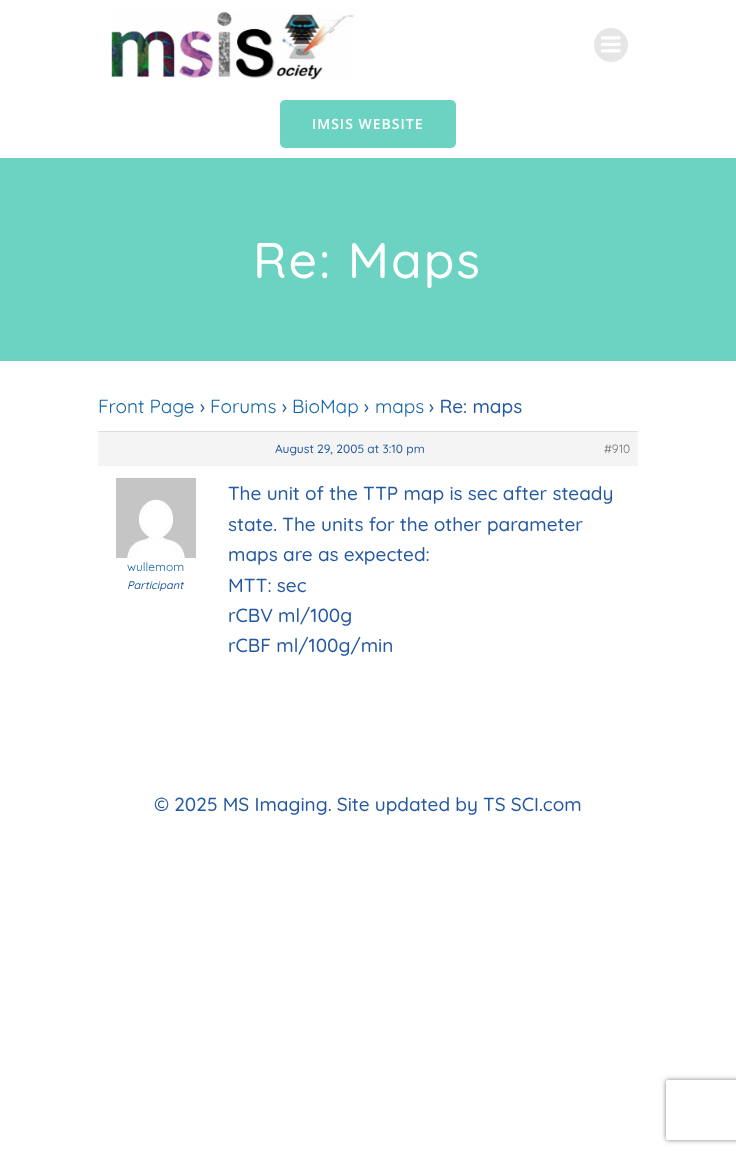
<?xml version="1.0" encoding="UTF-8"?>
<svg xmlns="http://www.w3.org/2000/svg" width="736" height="1154">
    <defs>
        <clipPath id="clip1"><path d="M 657 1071 H 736 V 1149 H 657 Z M 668 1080 H 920 C 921 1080 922 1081 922 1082 V 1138 C 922 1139 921 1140 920 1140 H 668 C 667 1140 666 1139 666 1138 V 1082 C 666 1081 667 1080 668 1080 Z" clip-rule="evenodd"/></clipPath>
        <filter id="blur1" x="-50%" y="-200%" width="200%" height="500%"><feGaussianBlur stdDeviation="2.5"/></filter>
    </defs>
    <rect width="100%" height="100%" fill="#FFFFFF"/>
    <image x="111" y="11" width="243" height="69" href="img_01.png"/>
    <circle cx="611" cy="45" r="17" fill="#E6E6E6"/>
    <image x="601" y="36" width="20" height="17" href="img_02.png"/>
    <rect x="281" y="101" width="174" height="46" rx="4" fill="#6CD3C2" stroke="#6CD3C2" stroke-width="2"/>
    <text x="312" y="129" font-family="Open Sans" font-size="14" font-weight="600" letter-spacing="1" fill="#FFFFFF">IMSIS WEBSITE</text>
    <rect x="0" y="158" width="736" height="203" fill="#6CD3C2"/>
    <text x="253" y="278" font-family="Quicksand" font-size="50" font-weight="500" letter-spacing="2" fill="#FFFFFF">Re: Maps</text>
    <text x="98" y="413" font-family="Quicksand" font-size="19" fill="#1566A8">Front Page</text>
    <text x="200" y="413" font-family="Quicksand" font-size="19" font-weight="500" fill="#2459A1">›</text>
    <text x="210" y="413" font-family="Quicksand" font-size="19" fill="#1566A8">Forums</text>
    <text x="282" y="413" font-family="Quicksand" font-size="19" font-weight="500" fill="#2459A1">›</text>
    <text x="292" y="413" font-family="Quicksand" font-size="19" fill="#1566A8">BioMap</text>
    <text x="364" y="413" font-family="Quicksand" font-size="19" font-weight="500" fill="#2459A1">›</text>
    <text x="375" y="413" font-family="Quicksand" font-size="19" fill="#1566A8">maps</text>
    <text x="429" y="413" font-family="Quicksand" font-size="19" font-weight="500" fill="#2459A1">› Re: maps</text>
    <rect x="98" y="432" width="540" height="34" fill="#F4F4F4"/>
    <rect x="98" y="431" width="540" height="1" fill="#DDDDDD"/>
    <text x="275" y="453" font-family="Quicksand" font-size="12" font-weight="500" fill="#2459A1">August 29, 2005 at 3:10 pm</text>
    <text x="604" y="453" font-family="Quicksand" font-size="12" fill="#707070">#910</text>
    <image x="116" y="478" width="80" height="80" href="img_03.png"/>
    <text x="127" y="571" font-family="Quicksand" font-size="12" fill="#1566A8">wullemom</text>
    <text x="127" y="589" font-family="Quicksand" font-size="11" font-weight="500" font-style="italic" fill="#2459A1">Participant</text>
    <text font-family="Quicksand" font-size="19" font-weight="500" fill="#2459A1">
        <tspan x="228" y="500">The unit of the TTP map is sec after steady</tspan>
        <tspan x="228" y="531">state. The units for the other parameter</tspan>
        <tspan x="228" y="561">maps are as expected:</tspan>
        <tspan x="228" y="592">MTT: sec</tspan>
        <tspan x="228" y="622">rCBV ml/100g</tspan>
        <tspan x="228" y="652">rCBF ml/100g/min</tspan>
    </text>
    <text x="154" y="811" font-family="Quicksand" font-size="19" font-weight="500" fill="#2459A1">© 2025 MS Imaging. Site updated by TS SCI.com</text>
    <g clip-path="url(#clip1)">
        <rect x="666" y="1080" width="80" height="60" rx="2" fill="#808080" filter="url(#blur1)"/>
    </g>
</svg>
